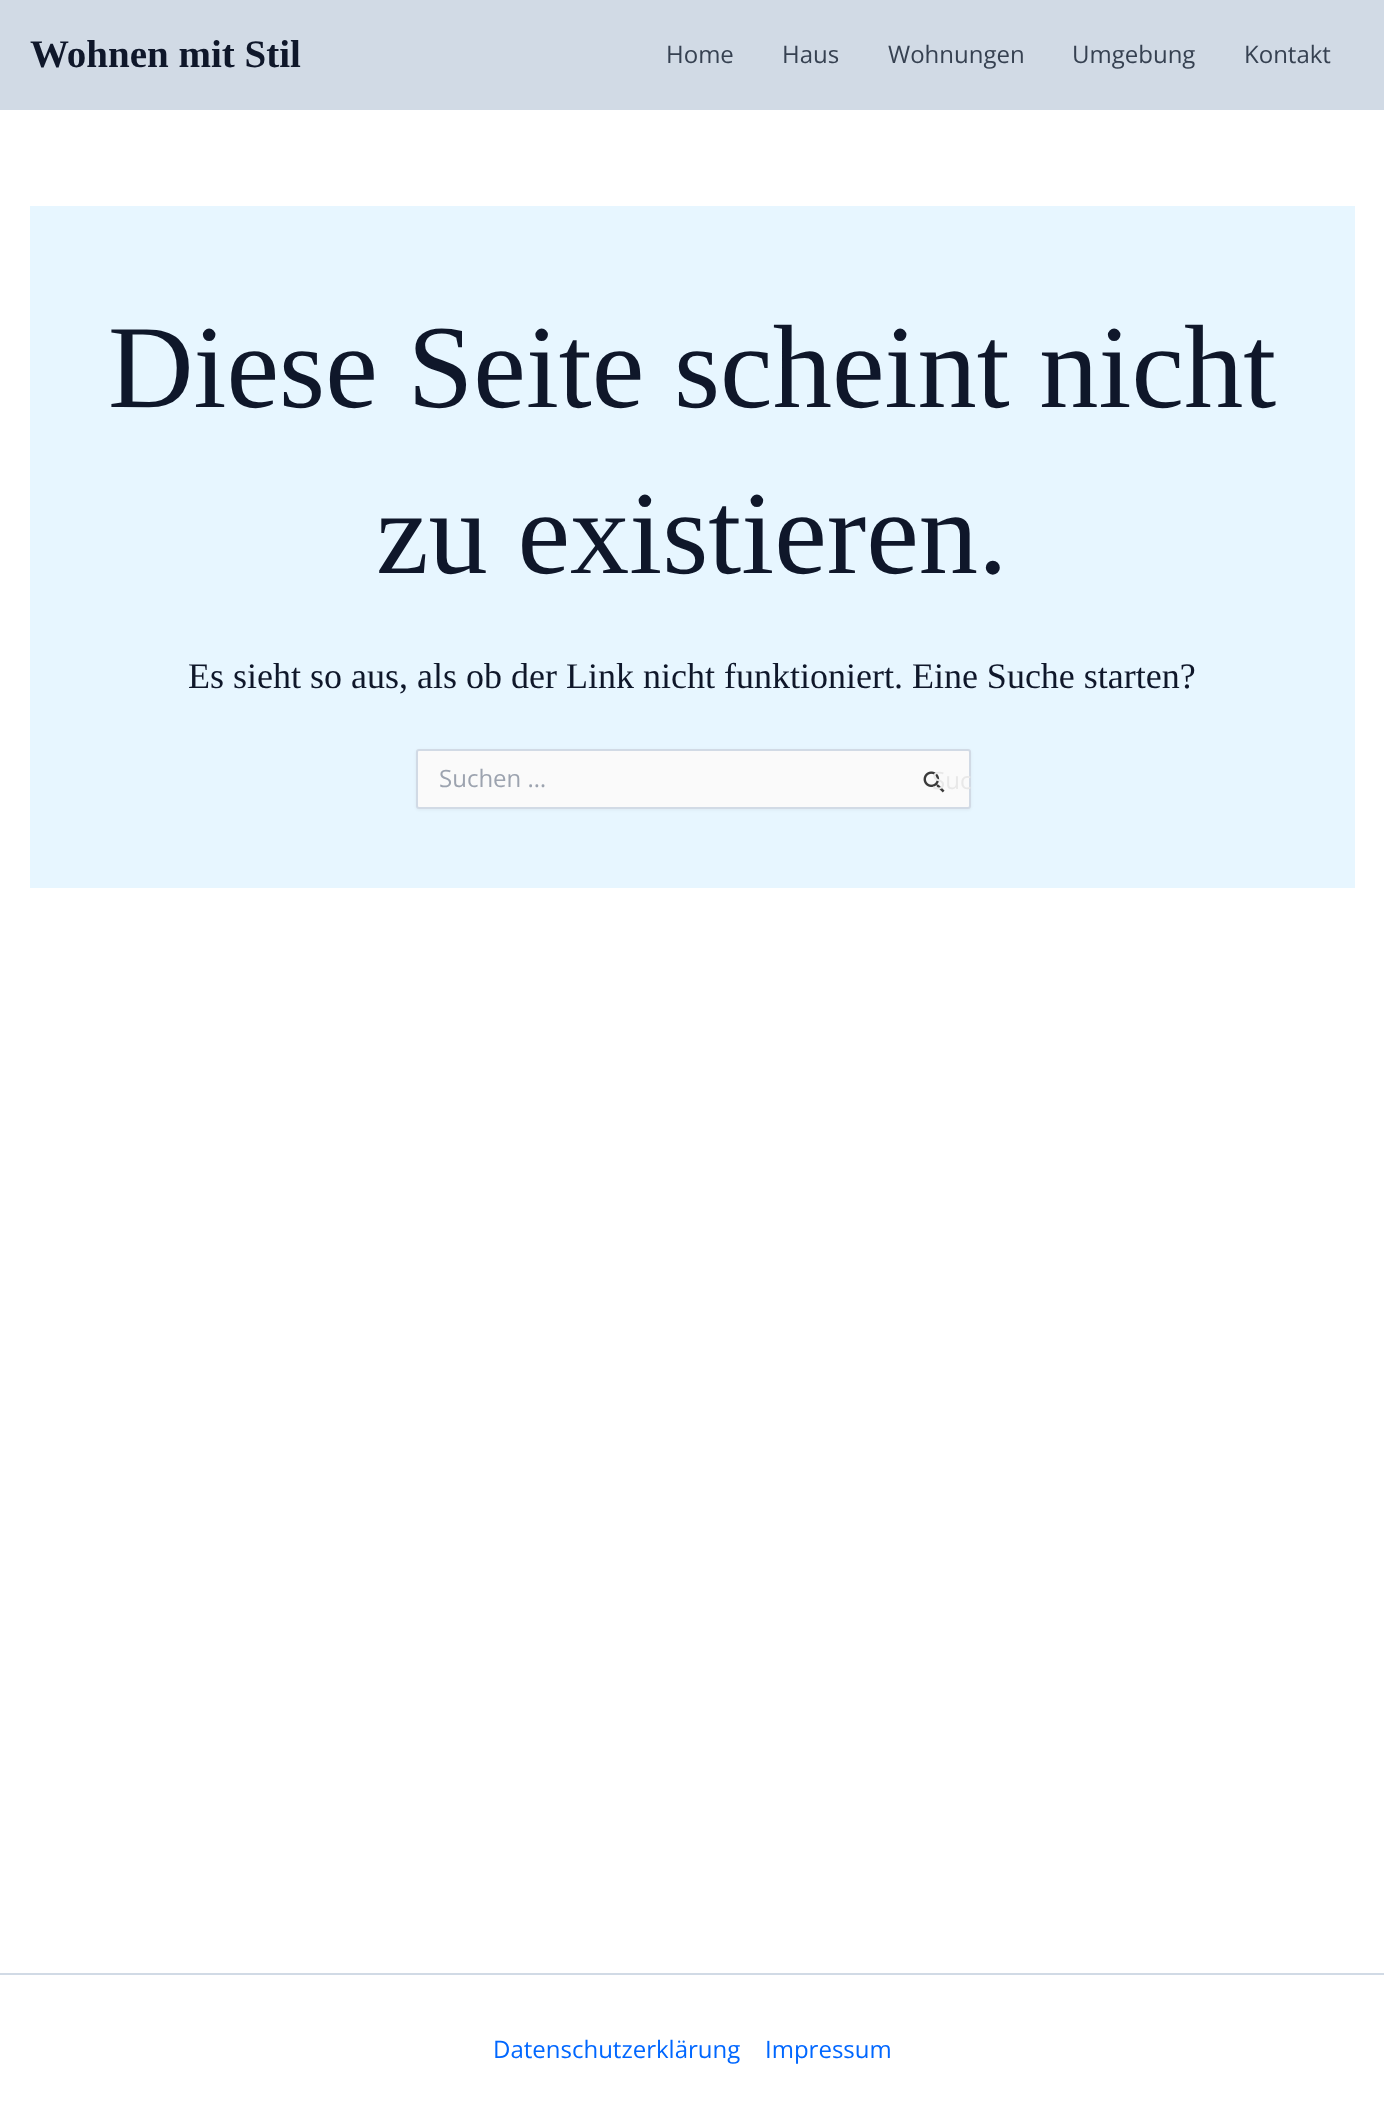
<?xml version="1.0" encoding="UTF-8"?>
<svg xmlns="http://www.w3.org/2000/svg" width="1384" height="2124">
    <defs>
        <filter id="blur1" x="-50%" y="-200%" width="200%" height="500%"><feGaussianBlur stdDeviation="1.5"/></filter>
    </defs>
    <rect width="100%" height="100%" fill="#FFFFFF"/>
    <rect x="0" y="0" width="1384" height="110" fill="#D1DAE5"/>
    <text x="30" y="67" font-family="Liberation Serif" font-size="39" font-weight="700" fill="#0F172A">Wohnen mit Stil</text>
    <text x="666" y="63" font-family="Open Sans" font-size="24" fill="#364151">Home</text>
    <text x="782" y="63" font-family="Open Sans" font-size="24" fill="#364151">Haus</text>
    <text x="888" y="63" font-family="Open Sans" font-size="24" fill="#364151">Wohnungen</text>
    <text x="1072" y="63" font-family="Open Sans" font-size="24" fill="#364151">Umgebung</text>
    <text x="1244" y="63" font-family="Open Sans" font-size="24" fill="#364151">Kontakt</text>
    <rect x="30" y="206" width="1325" height="682" fill="#E7F6FF"/>
    <text x="108" y="407" font-family="Liberation Serif" font-size="118.5" fill="#0F172A">Diese Seite scheint nicht</text>
    <text x="376" y="573" font-family="Liberation Serif" font-size="118.5" fill="#0F172A">zu existieren.</text>
    <text x="188" y="688" font-family="Liberation Serif" font-size="36" fill="#0F172A">Es sieht so aus, als ob der Link nicht funktioniert. Eine Suche starten?</text>
    <rect x="416" y="750" width="555" height="60" rx="3" fill="#000000" fill-opacity="0.05" filter="url(#blur1)"/>
    <rect x="417" y="750" width="553" height="58" rx="2" fill="#FAFAFA" stroke="#D1DAE5" stroke-width="2"/>
    <text x="439" y="787" font-family="Open Sans" font-size="24" fill="#9CA3AF">Suchen …</text>
    <image x="923" y="771" width="22" height="22" href="img_01.png"/>
    <text x="932" y="789" font-family="Open Sans" font-size="24" fill="#E8E8E8">Suc</text>
    <rect x="0" y="1973" width="1384" height="2" fill="#D1DAE5"/>
    <text x="493" y="2058" font-family="Open Sans" font-size="24" fill="#0067FF">Datenschutzerklärung</text>
    <text x="765" y="2058" font-family="Open Sans" font-size="24" fill="#0067FF">Impressum</text>
</svg>
